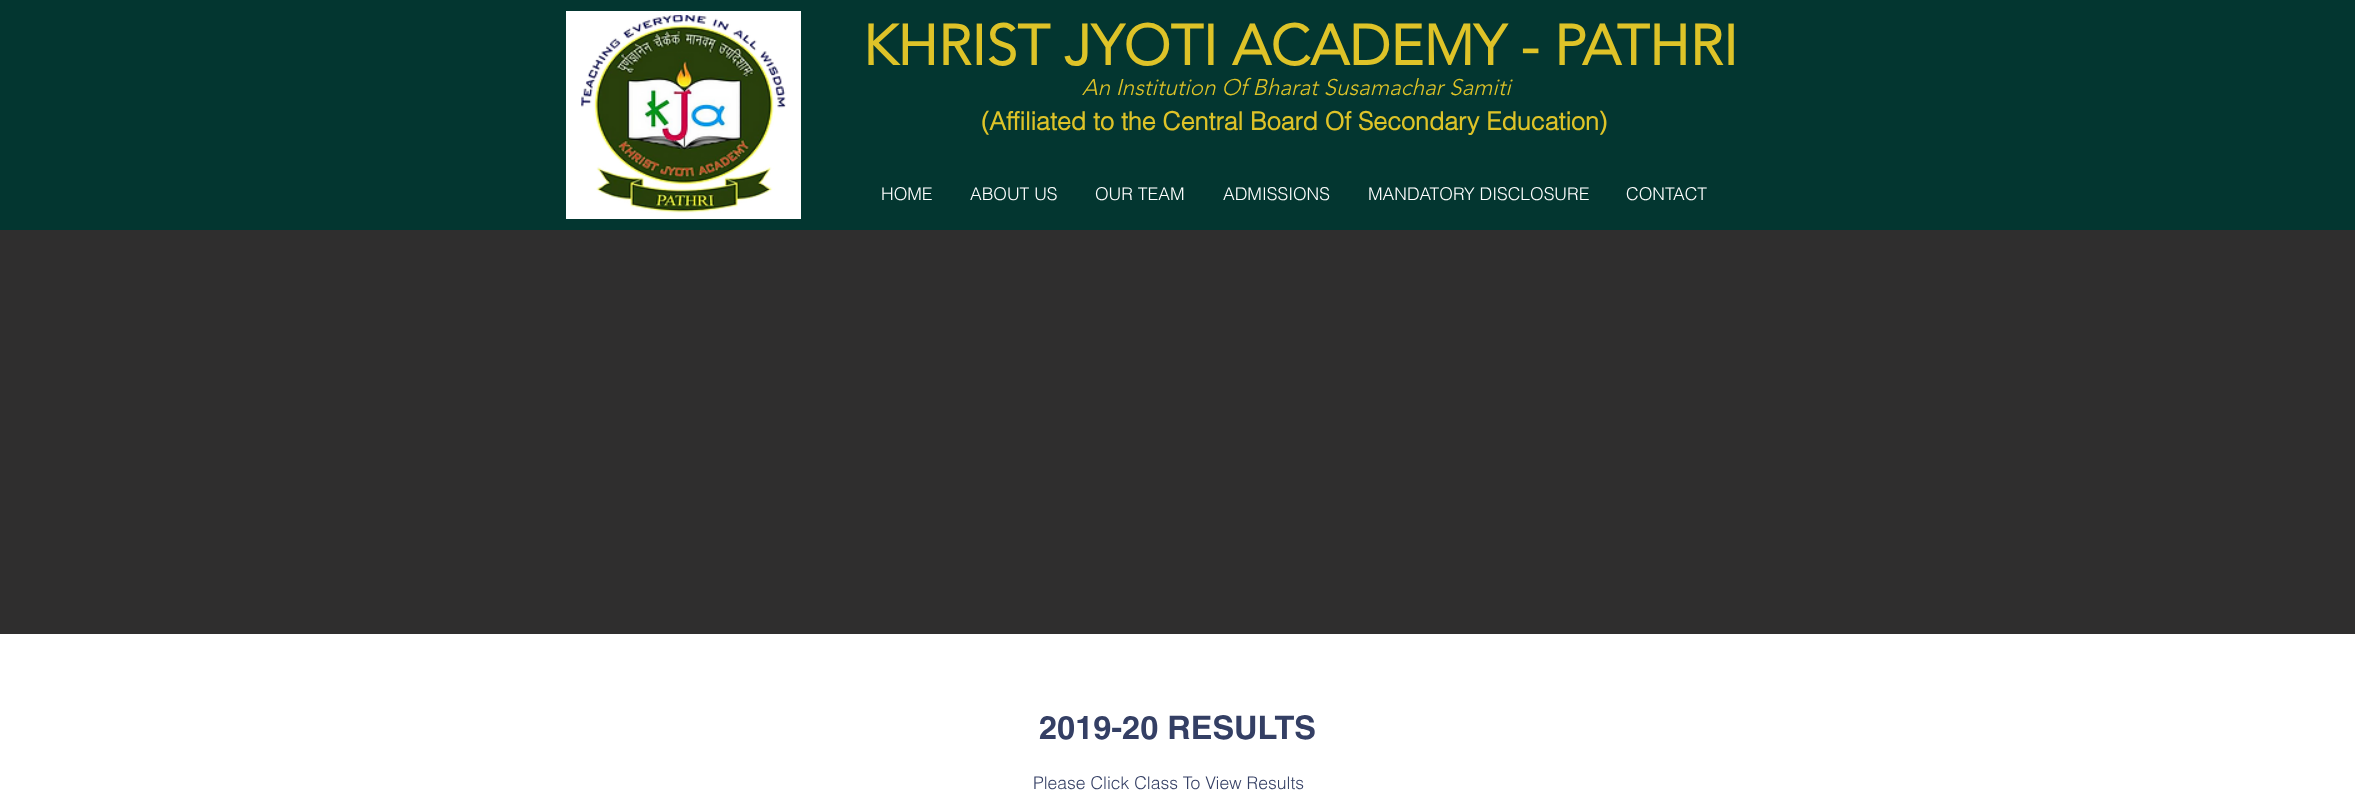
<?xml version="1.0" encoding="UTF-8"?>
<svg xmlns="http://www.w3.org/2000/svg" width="2355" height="805">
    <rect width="100%" height="100%" fill="#033630"/>
    <rect x="566" y="11" width="235" height="208" fill="#FFFFFF"/>
    <image x="581" y="15" width="205" height="198" href="img_01.png"/>
    <text x="863" y="65" font-family="'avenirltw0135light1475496'" font-size="56.25" font-weight="700" fill="#DEC328">KHRIST JYOTI ACADEMY - PATHRI</text>
    <text x="981" y="130" font-family="helvetica" font-size="25" font-weight="700" fill="#DEC328">(Affiliated to the Central Board Of Secondary Education)</text>
    <text x="1082" y="95" font-family="'avenirltw0135light1475496'" font-size="22.5" font-weight="300" font-style="italic" fill="#DEC328">An Institution Of Bharat Susamachar Samiti</text>
    <text x="881" y="200" font-family="helvetica" font-size="17.5" font-weight="300" fill="#FFFFFF">HOME</text>
    <text x="970" y="200" font-family="helvetica" font-size="17.5" font-weight="300" fill="#FFFFFF">ABOUT US</text>
    <text x="1095" y="200" font-family="helvetica" font-size="17.5" font-weight="300" fill="#FFFFFF">OUR TEAM</text>
    <text x="1223" y="200" font-family="helvetica" font-size="17.5" font-weight="300" fill="#FFFFFF">ADMISSIONS</text>
    <text x="1368" y="200" font-family="helvetica" font-size="17.5" font-weight="300" fill="#FFFFFF">MANDATORY DISCLOSURE</text>
    <text x="1626" y="200" font-family="helvetica" font-size="17.5" font-weight="300" fill="#FFFFFF">CONTACT</text>
    <rect x="0" y="230" width="2355" height="404" fill="#2F2E2E"/>
    <rect x="0" y="634" width="2355" height="171" fill="#FFFFFF"/>
    <text x="1039" y="739" font-family="'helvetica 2'" font-size="32.5" font-weight="700" fill="#343F64">2019-20 RESULTS</text>
    <text x="1033" y="789" font-family="helvetica" font-size="17.5" font-weight="300" fill="#343F64">Please Click Class To View Results</text>
</svg>
